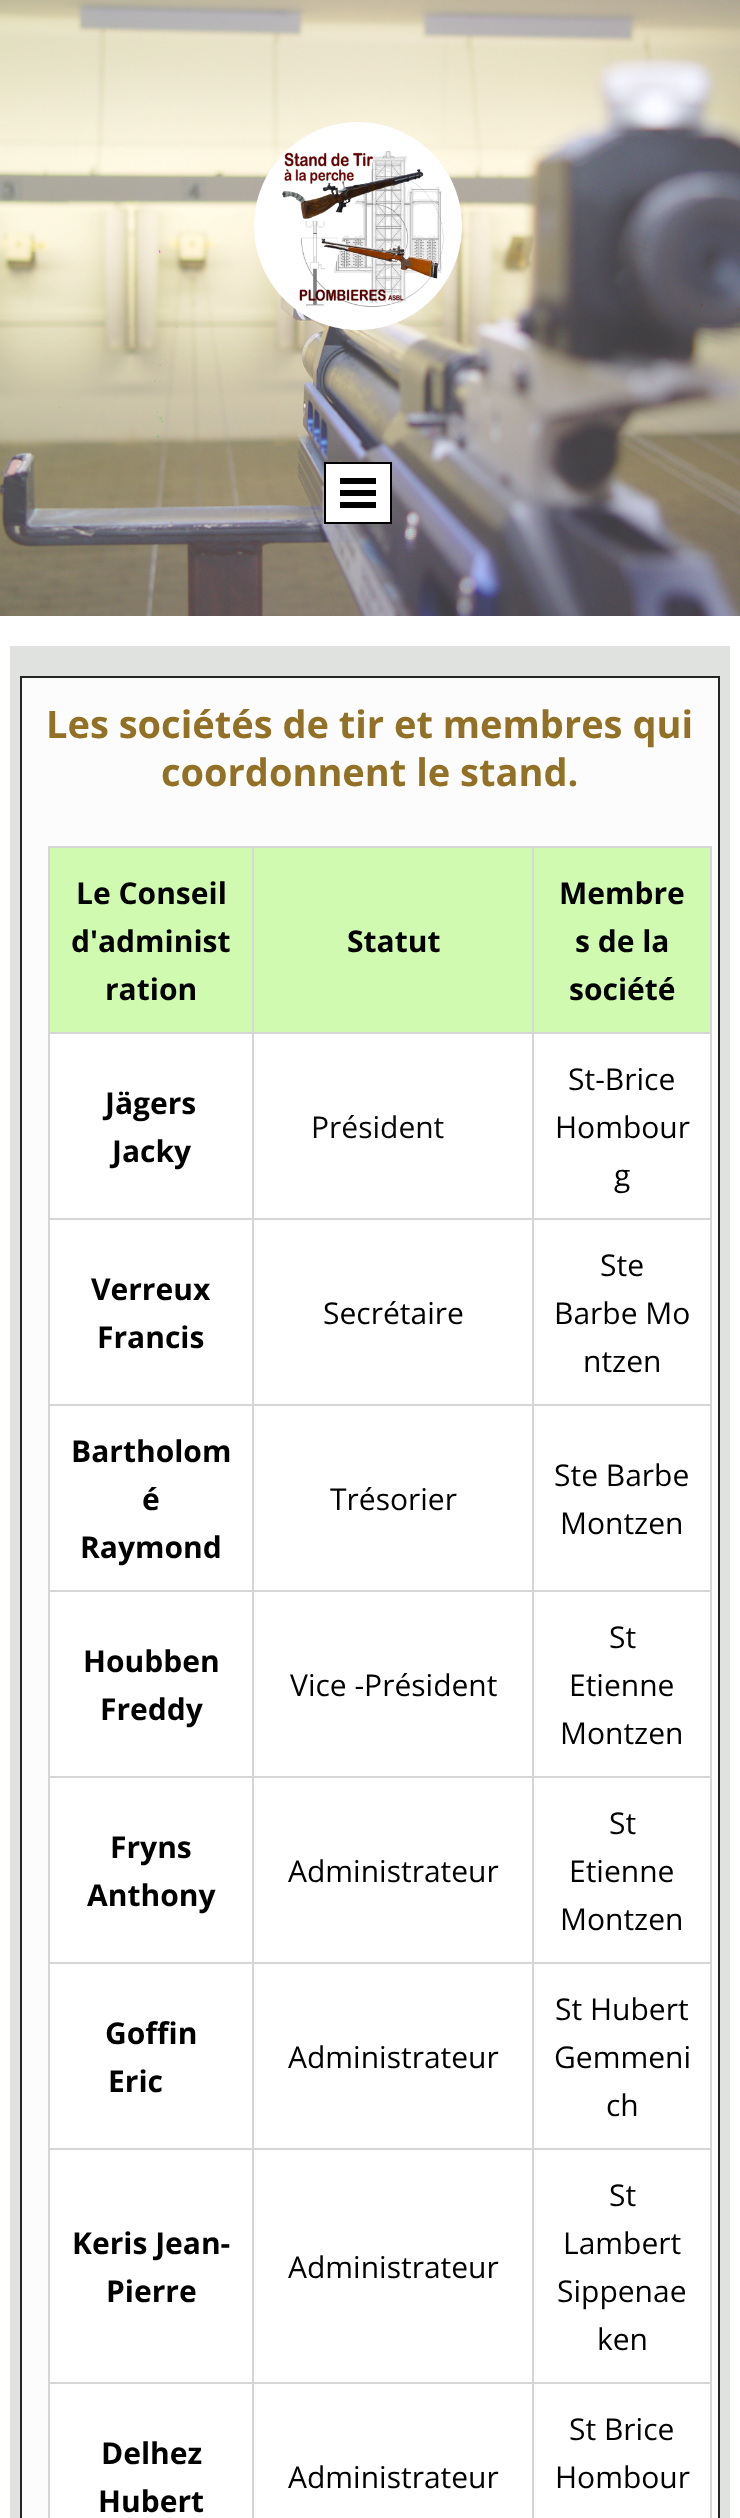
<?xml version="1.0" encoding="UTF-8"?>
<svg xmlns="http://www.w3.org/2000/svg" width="740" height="2518">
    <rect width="100%" height="100%" fill="#FFFFFF"/>
    <image x="0" y="0" width="740" height="616" href="img_01.png"/>
    <image x="254" y="122" width="208" height="208" href="img_02.png"/>
    <rect x="325" y="463" width="66" height="60" fill="none" stroke="#000000" stroke-width="2"/>
    <rect x="326" y="464" width="64" height="58" fill="#FFFFFF"/>
    <rect x="340" y="478" width="36" height="6" fill="#000000"/>
    <rect x="340" y="490" width="36" height="6" fill="#000000"/>
    <rect x="340" y="502" width="36" height="6" fill="#000000"/>
    <rect x="10" y="646" width="720" height="1872" fill="#E0E2DF"/>
    <rect x="21" y="677" width="698" height="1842" fill="#FCFCFC" stroke="#262525" stroke-width="2"/>
    <text x="46" y="738" font-family="Open Sans" font-size="38" font-weight="700" fill="#927126">Les sociétés de tir et membres qui</text>
    <text x="161" y="786" font-family="Open Sans" font-size="38" font-weight="700" fill="#927126">coordonnent le stand.</text>
    <rect x="50" y="1034" width="660" height="1484" fill="#FFFFFF"/>
    <rect x="50" y="848" width="202" height="184" fill="#CFFAB0"/>
    <rect x="532" y="846" width="180" height="2" fill="#D6D6D6"/>
    <rect x="532" y="1032" width="180" height="2" fill="#D6D6D6"/>
    <rect x="532" y="1218" width="180" height="2" fill="#D6D6D6"/>
    <rect x="532" y="1404" width="180" height="2" fill="#D6D6D6"/>
    <rect x="532" y="1590" width="180" height="2" fill="#D6D6D6"/>
    <rect x="532" y="1776" width="180" height="2" fill="#D6D6D6"/>
    <rect x="532" y="1962" width="180" height="2" fill="#D6D6D6"/>
    <rect x="532" y="2148" width="180" height="2" fill="#D6D6D6"/>
    <rect x="532" y="2382" width="180" height="2" fill="#D6D6D6"/>
    <rect x="532" y="2382" width="2" height="136" fill="#D6D6D6"/>
    <rect x="252" y="2382" width="282" height="2" fill="#D6D6D6"/>
    <rect x="532" y="2148" width="2" height="236" fill="#D6D6D6"/>
    <rect x="252" y="2148" width="282" height="2" fill="#D6D6D6"/>
    <rect x="532" y="1962" width="2" height="188" fill="#D6D6D6"/>
    <rect x="252" y="1962" width="282" height="2" fill="#D6D6D6"/>
    <rect x="532" y="1776" width="2" height="188" fill="#D6D6D6"/>
    <rect x="252" y="1776" width="282" height="2" fill="#D6D6D6"/>
    <rect x="532" y="1590" width="2" height="188" fill="#D6D6D6"/>
    <rect x="252" y="1590" width="282" height="2" fill="#D6D6D6"/>
    <rect x="532" y="1404" width="2" height="188" fill="#D6D6D6"/>
    <rect x="252" y="1404" width="282" height="2" fill="#D6D6D6"/>
    <rect x="532" y="1218" width="2" height="188" fill="#D6D6D6"/>
    <rect x="252" y="1218" width="282" height="2" fill="#D6D6D6"/>
    <rect x="532" y="1032" width="2" height="188" fill="#D6D6D6"/>
    <rect x="252" y="1032" width="282" height="2" fill="#D6D6D6"/>
    <rect x="532" y="846" width="2" height="188" fill="#D6D6D6"/>
    <rect x="252" y="846" width="282" height="2" fill="#D6D6D6"/>
    <rect x="252" y="2382" width="2" height="136" fill="#D6D6D6"/>
    <rect x="48" y="2382" width="206" height="2" fill="#D6D6D6"/>
    <rect x="252" y="2148" width="2" height="236" fill="#D6D6D6"/>
    <rect x="48" y="2148" width="206" height="2" fill="#D6D6D6"/>
    <rect x="252" y="1962" width="2" height="188" fill="#D6D6D6"/>
    <rect x="48" y="1962" width="206" height="2" fill="#D6D6D6"/>
    <rect x="252" y="1776" width="2" height="188" fill="#D6D6D6"/>
    <rect x="48" y="1776" width="206" height="2" fill="#D6D6D6"/>
    <rect x="252" y="1590" width="2" height="188" fill="#D6D6D6"/>
    <rect x="48" y="1590" width="206" height="2" fill="#D6D6D6"/>
    <rect x="252" y="1404" width="2" height="188" fill="#D6D6D6"/>
    <rect x="48" y="1404" width="206" height="2" fill="#D6D6D6"/>
    <rect x="252" y="1218" width="2" height="188" fill="#D6D6D6"/>
    <rect x="48" y="1218" width="206" height="2" fill="#D6D6D6"/>
    <rect x="252" y="1032" width="2" height="188" fill="#D6D6D6"/>
    <rect x="48" y="1032" width="206" height="2" fill="#D6D6D6"/>
    <rect x="252" y="846" width="2" height="188" fill="#D6D6D6"/>
    <rect x="48" y="846" width="206" height="2" fill="#D6D6D6"/>
    <rect x="48" y="2382" width="2" height="136" fill="#D6D6D6"/>
    <rect x="48" y="2148" width="2" height="236" fill="#D6D6D6"/>
    <rect x="48" y="1962" width="2" height="188" fill="#D6D6D6"/>
    <rect x="48" y="1776" width="2" height="188" fill="#D6D6D6"/>
    <rect x="48" y="1590" width="2" height="188" fill="#D6D6D6"/>
    <rect x="48" y="1404" width="2" height="188" fill="#D6D6D6"/>
    <rect x="48" y="1218" width="2" height="188" fill="#D6D6D6"/>
    <rect x="48" y="1032" width="2" height="188" fill="#D6D6D6"/>
    <rect x="48" y="846" width="2" height="188" fill="#D6D6D6"/>
    <text x="76" y="904" font-family="Open Sans" font-size="30" font-weight="700" fill="#000000">Le Conseil</text>
    <text x="71" y="952" font-family="Open Sans" font-size="30" font-weight="700" fill="#000000">d'administ</text>
    <text x="105" y="1000" font-family="Open Sans" font-size="30" font-weight="700" fill="#000000">ration</text>
    <rect x="254" y="848" width="278" height="184" fill="#CFFAB0"/>
    <text x="347" y="952" font-family="Open Sans" font-size="30" font-weight="700" fill="#000000">Statut</text>
    <rect x="534" y="848" width="176" height="184" fill="#CFFAB0"/>
    <rect x="710" y="2382" width="2" height="136" fill="#D6D6D6"/>
    <rect x="710" y="2148" width="2" height="236" fill="#D6D6D6"/>
    <rect x="710" y="1962" width="2" height="188" fill="#D6D6D6"/>
    <rect x="710" y="1776" width="2" height="188" fill="#D6D6D6"/>
    <rect x="710" y="1590" width="2" height="188" fill="#D6D6D6"/>
    <rect x="710" y="1404" width="2" height="188" fill="#D6D6D6"/>
    <rect x="710" y="1218" width="2" height="188" fill="#D6D6D6"/>
    <rect x="710" y="1032" width="2" height="188" fill="#D6D6D6"/>
    <rect x="710" y="846" width="2" height="188" fill="#D6D6D6"/>
    <text x="559" y="904" font-family="Open Sans" font-size="30" font-weight="700" fill="#000000">Membre</text>
    <text x="575" y="952" font-family="Open Sans" font-size="30" font-weight="700" fill="#000000">s de la</text>
    <text x="569" y="1000" font-family="Open Sans" font-size="30" font-weight="700" fill="#000000">société</text>
    <text x="105" y="1114" font-family="Open Sans" font-size="30" font-weight="700" fill="#000000">Jägers</text>
    <text x="112" y="1162" font-family="Open Sans" font-size="30" font-weight="700" fill="#000000">Jacky</text>
    <text x="311" y="1138" font-family="Open Sans" font-size="30" fill="#080808">Président</text>
    <text x="568" y="1090" font-family="Open Sans" font-size="30" fill="#000000">St-Brice</text>
    <text x="555" y="1138" font-family="Open Sans" font-size="30" fill="#000000">Hombour</text>
    <text x="614" y="1186" font-family="Open Sans" font-size="30" fill="#000000">g</text>
    <text x="91" y="1300" font-family="Open Sans" font-size="30" font-weight="700" fill="#000000">Verreux</text>
    <text x="97" y="1348" font-family="Open Sans" font-size="30" font-weight="700" fill="#000000">Francis</text>
    <text x="323" y="1324" font-family="Open Sans" font-size="30" fill="#000000">Secrétaire</text>
    <text x="600" y="1276" font-family="Open Sans" font-size="30" fill="#000000">Ste</text>
    <text x="554" y="1324" font-family="Open Sans" font-size="30" fill="#000000">Barbe Mo</text>
    <text x="583" y="1372" font-family="Open Sans" font-size="30" fill="#000000">ntzen</text>
    <text x="71" y="1462" font-family="Open Sans" font-size="30" font-weight="700" fill="#000000">Bartholom</text>
    <text x="142" y="1510" font-family="Open Sans" font-size="30" font-weight="700" fill="#000000">é</text>
    <text x="80" y="1558" font-family="Open Sans" font-size="30" font-weight="700" fill="#000000">Raymond</text>
    <text x="330" y="1510" font-family="Open Sans" font-size="30" fill="#000000">Trésorier</text>
    <text x="554" y="1486" font-family="Open Sans" font-size="30" fill="#000000">Ste Barbe</text>
    <text x="560" y="1534" font-family="Open Sans" font-size="30" fill="#000000">Montzen</text>
    <text x="83" y="1672" font-family="Open Sans" font-size="30" font-weight="700" fill="#000000">Houbben</text>
    <text x="100" y="1720" font-family="Open Sans" font-size="30" font-weight="700" fill="#000000">Freddy</text>
    <text x="290" y="1696" font-family="Open Sans" font-size="30" fill="#000000">Vice -Président</text>
    <text x="609" y="1648" font-family="Open Sans" font-size="30" fill="#000000">St</text>
    <text x="569" y="1696" font-family="Open Sans" font-size="30" fill="#000000">Etienne</text>
    <text x="560" y="1744" font-family="Open Sans" font-size="30" fill="#000000">Montzen</text>
    <text x="110" y="1858" font-family="Open Sans" font-size="30" font-weight="700" fill="#000000">Fryns</text>
    <text x="87" y="1906" font-family="Open Sans" font-size="30" font-weight="700" fill="#000000">Anthony</text>
    <text x="288" y="1882" font-family="Open Sans" font-size="30" fill="#000000">Administrateur</text>
    <text x="609" y="1834" font-family="Open Sans" font-size="30" fill="#000000">St</text>
    <text x="569" y="1882" font-family="Open Sans" font-size="30" fill="#000000">Etienne</text>
    <text x="560" y="1930" font-family="Open Sans" font-size="30" fill="#000000">Montzen</text>
    <text x="105" y="2044" font-family="Open Sans" font-size="30" font-weight="700" fill="#000000">Goffin</text>
    <text x="108" y="2092" font-family="Open Sans" font-size="30" font-weight="700" fill="#000000">Eric</text>
    <text x="288" y="2068" font-family="Open Sans" font-size="30" fill="#000000">Administrateur</text>
    <text x="555" y="2020" font-family="Open Sans" font-size="30" fill="#000000">St Hubert</text>
    <text x="554" y="2068" font-family="Open Sans" font-size="30" fill="#000000">Gemmeni</text>
    <text x="606" y="2116" font-family="Open Sans" font-size="30" fill="#000000">ch</text>
    <text x="72" y="2254" font-family="Open Sans" font-size="30" font-weight="700" fill="#000000">Keris Jean-</text>
    <text x="106" y="2302" font-family="Open Sans" font-size="30" font-weight="700" fill="#000000">Pierre</text>
    <text x="288" y="2278" font-family="Open Sans" font-size="30" fill="#000000">Administrateur</text>
    <text x="609" y="2206" font-family="Open Sans" font-size="30" fill="#000000">St</text>
    <text x="563" y="2254" font-family="Open Sans" font-size="30" fill="#000000">Lambert</text>
    <text x="557" y="2302" font-family="Open Sans" font-size="30" fill="#000000">Sippenae</text>
    <text x="597" y="2350" font-family="Open Sans" font-size="30" fill="#000000">ken</text>
    <text x="101" y="2464" font-family="Open Sans" font-size="30" font-weight="700" fill="#000000">Delhez</text>
    <text x="98" y="2512" font-family="Open Sans" font-size="30" font-weight="700" fill="#000000">Hubert</text>
    <text x="288" y="2488" font-family="Open Sans" font-size="30" fill="#000000">Administrateur</text>
    <text x="569" y="2440" font-family="Open Sans" font-size="30" fill="#000000">St Brice</text>
    <text x="555" y="2488" font-family="Open Sans" font-size="30" fill="#000000">Hombour</text>
</svg>
